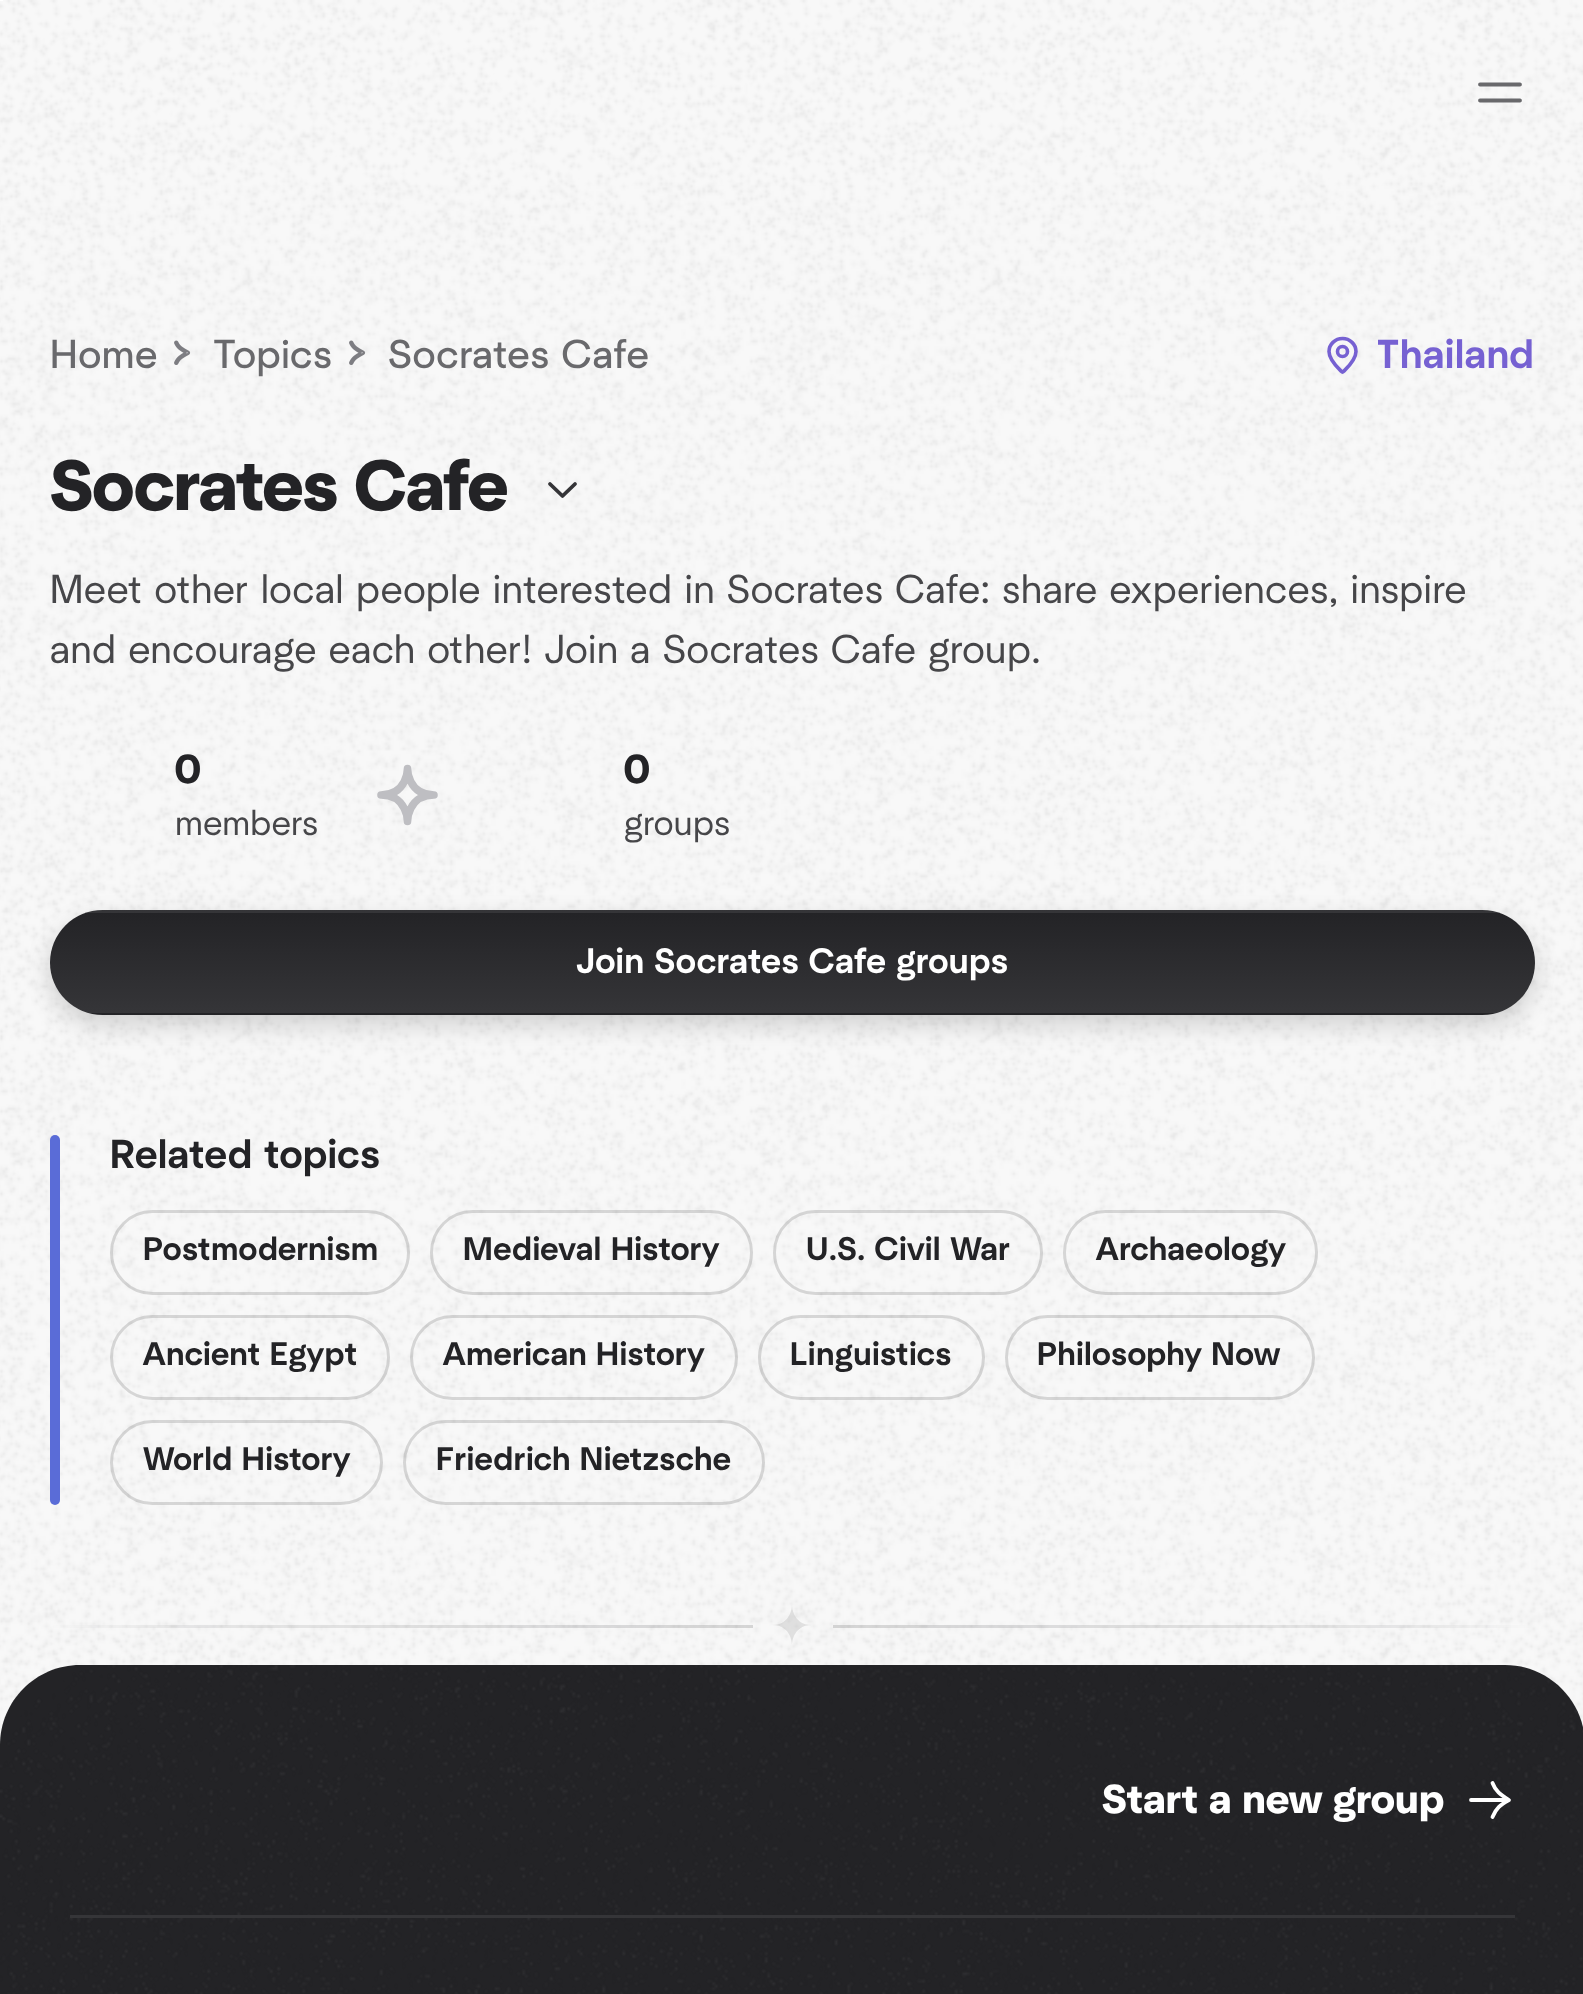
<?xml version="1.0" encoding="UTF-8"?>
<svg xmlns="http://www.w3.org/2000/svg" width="1583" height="1994">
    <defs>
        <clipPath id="clip1"><rect x="1378" y="325" width="157" height="60"/></clipPath>
        <filter id="blur1" x="-50%" y="-200%" width="200%" height="500%"><feGaussianBlur stdDeviation="12.5"/></filter>
        <clipPath id="clip2"><rect x="50" y="910" width="1485" height="105" rx="52.5"/></clipPath>
        <linearGradient id="g1" gradientUnits="userSpaceOnUse" x1="793" y1="812" x2="793" y2="913"><stop offset="0" stop-color="#232326"/><stop offset="1" stop-color="#353538"/></linearGradient>
        <linearGradient id="g2" gradientUnits="userSpaceOnUse" x1="793" y1="912" x2="793" y2="1013"><stop offset="0" stop-color="#232326"/><stop offset="1" stop-color="#353538"/></linearGradient>
        <linearGradient id="g3" gradientUnits="userSpaceOnUse" x1="793" y1="1012" x2="793" y2="1113"><stop offset="0" stop-color="#232326"/><stop offset="1" stop-color="#353538"/></linearGradient>
    </defs>
    <rect width="100%" height="100%" fill="#FFFFFF"/>
    <image x="0" y="185" width="1583" height="1560" href="img_01.png"/>
    <image x="0" y="0" width="1583" height="185" href="img_02.png"/>
    <rect x="0" y="0" width="3" height="1" fill="#FFFFFF"/>
    <path d="M 1480 100.5 H 1520 M 1480 84.5 H 1520" fill="none" stroke="#69696C" stroke-width="3.8" stroke-linecap="round" stroke-linejoin="round"/>
    <text x="50" y="368" font-family="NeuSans" font-size="40" letter-spacing="0.8" fill="#69696C">Home</text>
    <image x="174" y="340" width="17" height="25" href="img_03.png"/>
    <text x="213" y="368" font-family="NeuSans" font-size="40" letter-spacing="0.8" fill="#69696C">Topics</text>
    <image x="349" y="340" width="17" height="25" href="img_04.png"/>
    <text x="388" y="368" font-family="NeuSans" font-size="40" letter-spacing="0.8" fill="#69696C">Socrates Cafe</text>
    <path d="M 1356 351.5 C 1356 360 1346.5 368.5 1343.5 371.5 C 1343 372 1342 372 1341.5 371.5 C 1338.5 368.5 1329 360 1329 351.5 C 1329 344.5 1335 338.5 1342.5 338.5 C 1350 338.5 1356 344.5 1356 351.5" fill="none" stroke="#7661D2" stroke-width="3.6" stroke-linecap="round" stroke-linejoin="round"/>
    <circle cx="1342.5" cy="351.5" r="5" fill="none" stroke="#7661D2" stroke-width="3.6"/>
    <g clip-path="url(#clip1)">
        <text x="1376" y="368" font-family="NeuSans" font-size="40" font-weight="500" letter-spacing="0.8" fill="#7661D2">Thailand</text>
    </g>
    <text x="50" y="510" font-family="NeuSans" font-size="70" font-weight="700" fill="#232326">Socrates Cafe</text>
    <path d="M 550 484 L 562.5 496 L 575 484" fill="none" stroke="#353538" stroke-width="3.8" stroke-linecap="round" stroke-linejoin="round"/>
    <text font-family="'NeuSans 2'" font-size="40" letter-spacing="0.8" fill="#464649">
        <tspan x="50" y="603">Meet other local people interested in Socrates Cafe: share experiences, inspire</tspan>
        <tspan x="50" y="663">and encourage each other! Join a Socrates Cafe group.</tspan>
    </text>
    <text x="175" y="783" font-family="NeuSans" font-size="40" font-weight="700" letter-spacing="0.8" fill="#232326">0</text>
    <text x="175" y="835" font-family="'NeuSans 2'" font-size="35" letter-spacing="0.7" fill="#464649">members</text>
    <path d="M 407.5 768.5 C 407.5 768.5 407.5 795 381 795 C 407.5 795 407.5 821.5 407.5 821.5 C 407.5 821.5 407.5 795 434 795 C 407.5 795 407.5 768.5 407.5 768.5 Z" fill="none" stroke="#BEBEC2" stroke-width="7.6" stroke-linecap="round" stroke-linejoin="round"/>
    <text x="624" y="783" font-family="NeuSans" font-size="40" font-weight="700" letter-spacing="0.8" fill="#232326">0</text>
    <text x="624" y="835" font-family="'NeuSans 2'" font-size="35" letter-spacing="0.7" fill="#464649">groups</text>
    <rect x="50" y="920" width="1485" height="105" rx="52.5" fill="#000010" fill-opacity="0.16" filter="url(#blur1)"/>
    <g clip-path="url(#clip2)">
        <rect x="85" y="910" width="1415" height="3" fill="url(#g1)"/>
        <rect x="50" y="913" width="1485" height="100" fill="url(#g2)"/>
        <rect x="88" y="1013" width="1409" height="2" fill="url(#g3)"/>
    </g>
    <text x="576" y="973" font-family="NeuSans" font-size="35" font-weight="500" letter-spacing="0.7" fill="#FFFFFF">Join Socrates Cafe groups</text>
    <rect x="50" y="1135" width="10" height="370" rx="5" fill="#5A6CD7"/>
    <text x="110" y="1168" font-family="NeuSans" font-size="40" font-weight="500" letter-spacing="0.8" fill="#232326">Related topics</text>
    <rect x="111.5" y="1211.5" width="297" height="82" rx="41" fill="none" stroke="#121215" stroke-opacity="0.15" stroke-width="3"/>
    <text x="143" y="1260" font-family="NeuSans" font-size="32.5" font-weight="500" letter-spacing="0.6" fill="#232326">Postmodernism</text>
    <rect x="431.5" y="1211.5" width="320" height="82" rx="41" fill="none" stroke="#121215" stroke-opacity="0.15" stroke-width="3"/>
    <text x="463" y="1260" font-family="NeuSans" font-size="32.5" font-weight="500" letter-spacing="0.6" fill="#232326">Medieval History</text>
    <rect x="774.5" y="1211.5" width="267" height="82" rx="41" fill="none" stroke="#121215" stroke-opacity="0.15" stroke-width="3"/>
    <text x="806" y="1260" font-family="NeuSans" font-size="32.5" font-weight="500" letter-spacing="0.6" fill="#232326">U.S. Civil War</text>
    <rect x="1064.5" y="1211.5" width="252" height="82" rx="41" fill="none" stroke="#121215" stroke-opacity="0.15" stroke-width="3"/>
    <text x="1096" y="1260" font-family="NeuSans" font-size="32.5" font-weight="500" letter-spacing="0.6" fill="#232326">Archaeology</text>
    <rect x="111.5" y="1316.5" width="277" height="82" rx="41" fill="none" stroke="#121215" stroke-opacity="0.15" stroke-width="3"/>
    <text x="143" y="1365" font-family="NeuSans" font-size="32.5" font-weight="500" letter-spacing="0.6" fill="#232326">Ancient Egypt</text>
    <rect x="411.5" y="1316.5" width="325" height="82" rx="41" fill="none" stroke="#121215" stroke-opacity="0.15" stroke-width="3"/>
    <text x="443" y="1365" font-family="NeuSans" font-size="32.5" font-weight="500" letter-spacing="0.6" fill="#232326">American History</text>
    <rect x="759.5" y="1316.5" width="224" height="82" rx="41" fill="none" stroke="#121215" stroke-opacity="0.15" stroke-width="3"/>
    <text x="790" y="1365" font-family="NeuSans" font-size="32.5" font-weight="500" letter-spacing="0.6" fill="#232326">Linguistics</text>
    <rect x="1006.5" y="1316.5" width="307" height="82" rx="41" fill="none" stroke="#121215" stroke-opacity="0.15" stroke-width="3"/>
    <text x="1037" y="1365" font-family="NeuSans" font-size="32.5" font-weight="500" letter-spacing="0.6" fill="#232326">Philosophy Now</text>
    <rect x="111.5" y="1421.5" width="270" height="82" rx="41" fill="none" stroke="#121215" stroke-opacity="0.15" stroke-width="3"/>
    <text x="143" y="1470" font-family="NeuSans" font-size="32.5" font-weight="500" letter-spacing="0.6" fill="#232326">World History</text>
    <rect x="404.5" y="1421.5" width="359" height="82" rx="41" fill="none" stroke="#121215" stroke-opacity="0.15" stroke-width="3"/>
    <text x="436" y="1470" font-family="NeuSans" font-size="32.5" font-weight="500" letter-spacing="0.6" fill="#232326">Friedrich Nietzsche</text>
    <path d="M 792 1605 C 792 1605 792 1625 772 1625 C 792 1625 792 1645 792 1645 C 792 1645 792 1625 812 1625 C 792 1625 792 1605 792 1605 Z" fill="#121215" fill-opacity="0.1"/>
    <path d="M 80 1665 H 1505 C 1549 1665 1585 1701 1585 1745 V 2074 H 0 V 1745 C 0 1701 36 1665 80 1665 Z" fill="#232326"/>
    <image x="0" y="1665" width="1583" height="329" href="img_05.png"/>
    <rect x="70" y="1915" width="1445" height="3" fill="#353538"/>
    <text x="1102" y="1813" font-family="NeuSans" font-size="40" font-weight="700" letter-spacing="0.8" fill="#FFFFFF">Start a new group</text>
    <path d="M 1492.5 1783 C 1495.5 1791 1500 1794.5 1509 1800 C 1500 1805 1496 1808.5 1492.5 1817 M 1471 1800 H 1508.5" fill="none" stroke="#FFFFFF" stroke-width="3.8" stroke-linecap="round" stroke-linejoin="round"/>
</svg>
